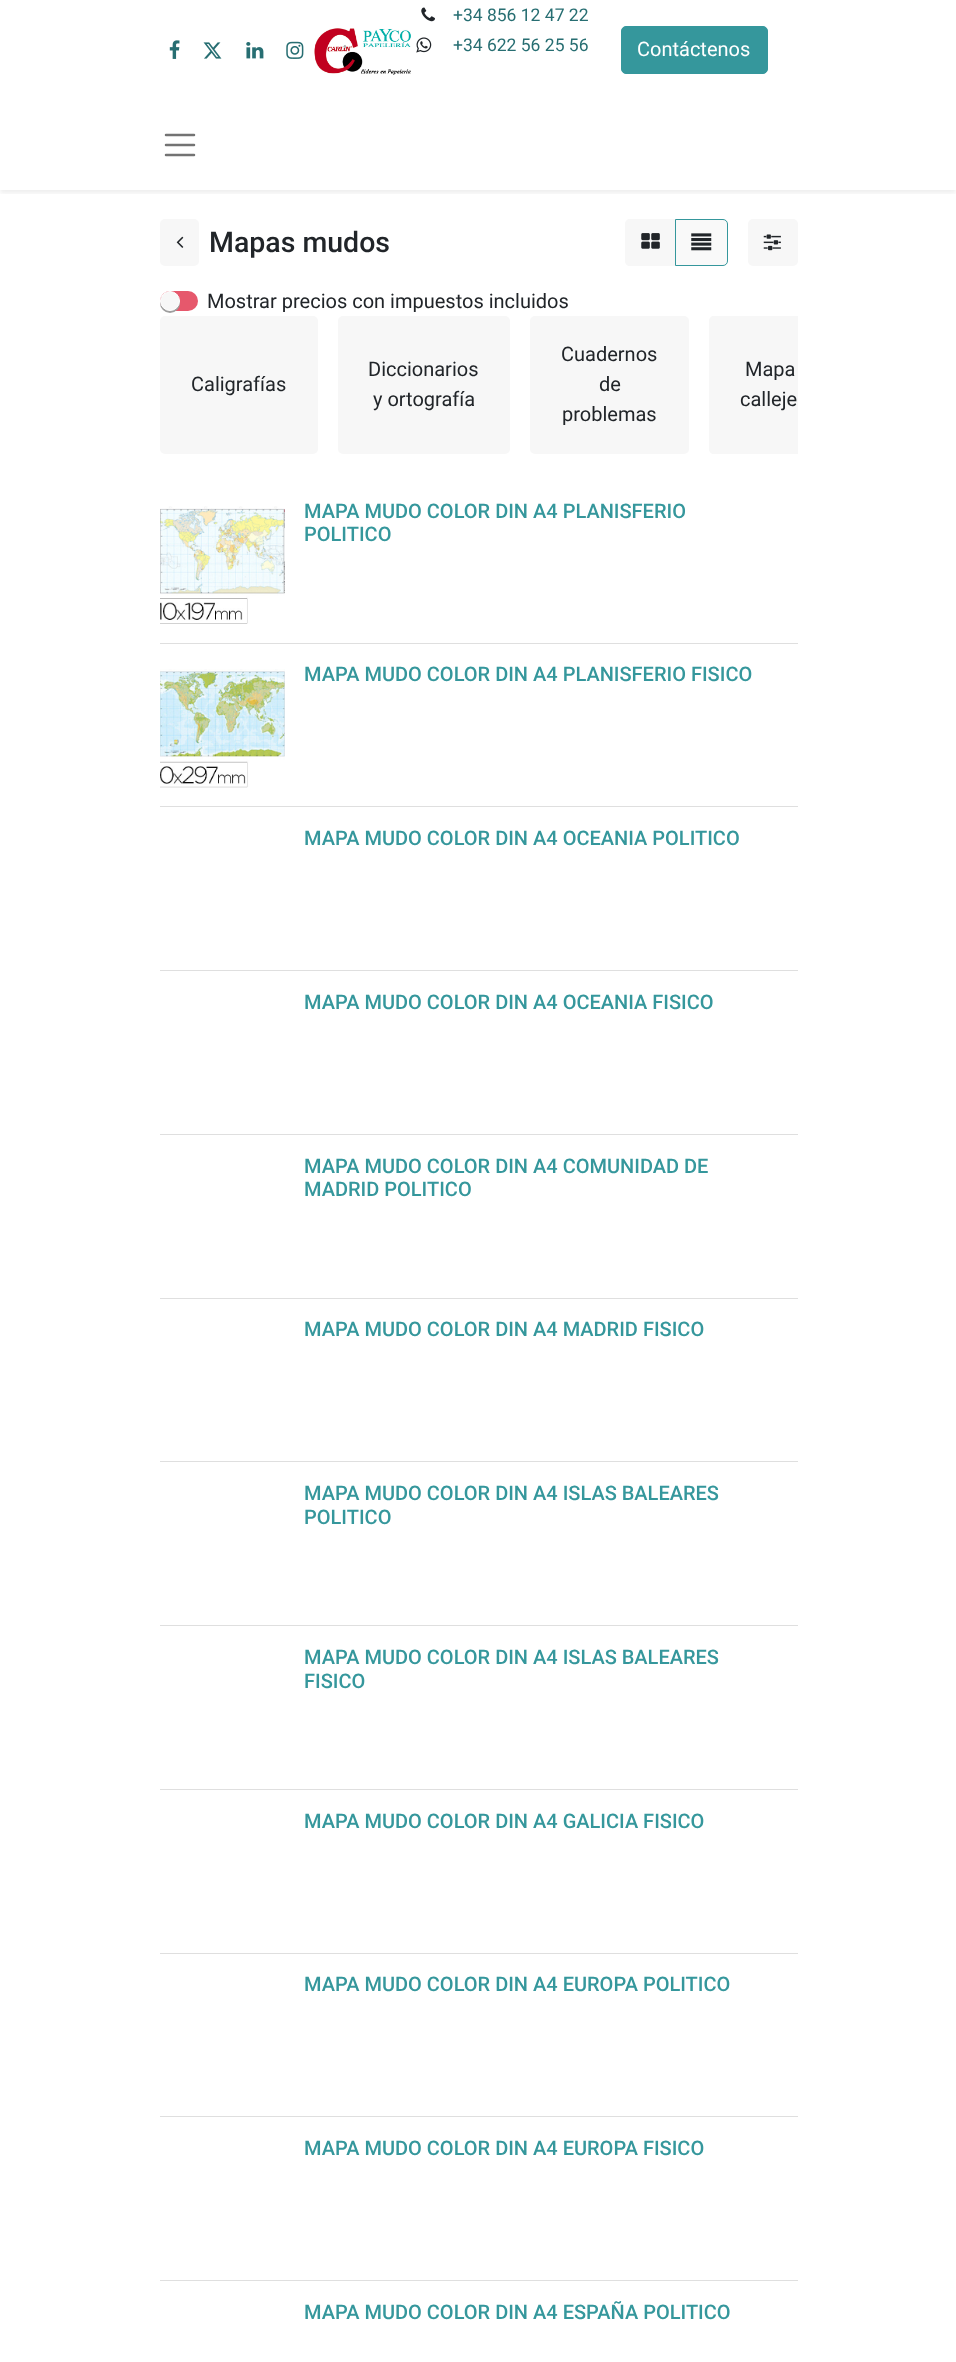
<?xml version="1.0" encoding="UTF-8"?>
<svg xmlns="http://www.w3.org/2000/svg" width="956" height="2362">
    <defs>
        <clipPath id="clip1"><rect x="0" y="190" width="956" height="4"/></clipPath>
        <filter id="blur1" x="-50%" y="-200%" width="200%" height="500%"><feGaussianBlur stdDeviation="2.5"/></filter>
        <filter id="blur2" x="-50%" y="-200%" width="200%" height="500%"><feGaussianBlur stdDeviation="0.5"/></filter>
    </defs>
    <rect width="100%" height="100%" fill="#FFFFFF"/>
    <g clip-path="url(#clip1)">
        <rect x="0" y="3" width="956" height="190" fill="#000000" fill-opacity="0.07" filter="url(#blur1)"/>
    </g>
    <image x="169" y="40" width="11" height="19" href="img_01.png"/>
    <image x="203" y="42" width="19" height="17" href="img_02.png"/>
    <image x="246" y="42" width="18" height="17" href="img_03.png"/>
    <image x="286" y="41" width="18" height="18" href="img_04.png"/>
    <image x="314" y="28" width="97" height="47" href="img_05.png"/>
    <image x="421" y="7" width="14" height="15" href="img_06.png"/>
    <text x="453" y="21" font-family="Roboto" font-size="17.5" fill="#276E72">+34 856 12 47 22</text>
    <image x="416" y="37" width="16" height="16" href="img_07.png"/>
    <text x="453" y="51" font-family="Roboto" font-size="17.5" fill="#276E72">+34 622 56 25 56</text>
    <rect x="621.5" y="26.5" width="146" height="47" rx="4.5" fill="#35979C" stroke="#35979C"/>
    <text x="637" y="56" font-family="Roboto" font-size="20" fill="#FFFFFF">Contáctenos</text>
    <path d="M 166 135 H 194 M 166 145 H 194 M 166 155 H 194" fill="none" stroke="#737373" stroke-width="2.5" stroke-linecap="round"/>
    <rect x="160" y="219" width="39" height="47" rx="5" fill="#F7F7F7"/>
    <image x="176" y="236" width="8" height="12" href="img_08.png"/>
    <text x="209" y="252" font-family="Roboto" font-size="28.5" font-weight="500" fill="#212529">Mapas mudos</text>
    <path d="M 630 219 H 676 V 266 H 630 C 627 266 625 264 625 261 V 224 C 625 221 627 219 630 219 Z" fill="#F7F7F7"/>
    <image x="641" y="233" width="19" height="16" href="img_09.png"/>
    <path d="M 675.5 219.5 H 723 C 725.5 219.5 727.5 221.5 727.5 224 V 261 C 727.5 263.5 725.5 265.5 723 265.5 H 675.5 Z" fill="#F9F9F9" stroke="#35979C"/>
    <image x="691" y="233" width="21" height="18" href="img_10.png"/>
    <rect x="748" y="219" width="50" height="47" rx="5" fill="#F7F7F7"/>
    <image x="763" y="234" width="18" height="17" href="img_11.png"/>
    <rect x="160" y="291" width="38" height="20" rx="10" fill="#E6586C"/>
    <rect x="160" y="293" width="20" height="20" rx="10" fill="#9E9E9E" filter="url(#blur2)"/>
    <circle cx="170" cy="301" r="9.5" fill="#F7F7F7" stroke="#FFFFFF"/>
    <text x="207" y="308" font-family="Roboto" font-size="20" fill="#212529">Mostrar precios con impuestos incluidos</text>
    <rect x="160" y="316" width="158" height="138" rx="5" fill="#F7F7F7"/>
    <text x="191" y="391" font-family="Roboto" font-size="20" fill="#212529">Caligrafías</text>
    <rect x="338" y="316" width="172" height="138" rx="5" fill="#F7F7F7"/>
    <text x="368" y="376" font-family="Roboto" font-size="20" fill="#212529">Diccionarios</text>
    <text x="373" y="406" font-family="Roboto" font-size="20" fill="#212529">y ortografía</text>
    <rect x="530" y="316" width="159" height="138" rx="5" fill="#F7F7F7"/>
    <text x="561" y="361" font-family="Roboto" font-size="20" fill="#212529">Cuadernos</text>
    <text x="599" y="391" font-family="Roboto" font-size="20" fill="#212529">de</text>
    <text x="562" y="421" font-family="Roboto" font-size="20" fill="#212529">problemas</text>
    <path d="M 714 316 H 798 V 454 H 714 C 711 454 709 452 709 449 V 321 C 709 318 711 316 714 316 Z" fill="#F7F7F7"/>
    <text x="745" y="376" font-family="Roboto" font-size="20" fill="#212529">Mapa</text>
    <text x="740" y="406" font-family="Roboto" font-size="20" fill="#212529">calleje</text>
    <rect x="160" y="643" width="638" height="1" fill="#DFDFDF"/>
    <image x="160" y="506" width="125" height="118" href="img_12.png"/>
    <text font-family="Roboto" font-size="20" font-weight="500" fill="#35979C">
        <tspan x="304" y="518">MAPA MUDO COLOR DIN A4 PLANISFERIO</tspan>
        <tspan x="304" y="541">POLITICO</tspan>
    </text>
    <rect x="160" y="806" width="638" height="1" fill="#DFDFDF"/>
    <image x="160" y="669" width="125" height="119" href="img_13.png"/>
    <text x="304" y="681" font-family="Roboto" font-size="20" font-weight="500" fill="#35979C">MAPA MUDO COLOR DIN A4 PLANISFERIO FISICO</text>
    <rect x="160" y="970" width="638" height="1" fill="#DFDFDF"/>
    <text x="304" y="845" font-family="Roboto" font-size="20" font-weight="500" fill="#35979C">MAPA MUDO COLOR DIN A4 OCEANIA POLITICO</text>
    <rect x="160" y="1134" width="638" height="1" fill="#DFDFDF"/>
    <text x="304" y="1009" font-family="Roboto" font-size="20" font-weight="500" fill="#35979C">MAPA MUDO COLOR DIN A4 OCEANIA FISICO</text>
    <rect x="160" y="1298" width="638" height="1" fill="#DFDFDF"/>
    <text font-family="Roboto" font-size="20" font-weight="500" fill="#35979C">
        <tspan x="304" y="1173">MAPA MUDO COLOR DIN A4 COMUNIDAD DE</tspan>
        <tspan x="304" y="1196">MADRID POLITICO</tspan>
    </text>
    <rect x="160" y="1461" width="638" height="1" fill="#DFDFDF"/>
    <text x="304" y="1336" font-family="Roboto" font-size="20" font-weight="500" fill="#35979C">MAPA MUDO COLOR DIN A4 MADRID FISICO</text>
    <rect x="160" y="1625" width="638" height="1" fill="#DFDFDF"/>
    <text font-family="Roboto" font-size="20" font-weight="500" fill="#35979C">
        <tspan x="304" y="1500">MAPA MUDO COLOR DIN A4 ISLAS BALEARES</tspan>
        <tspan x="304" y="1524">POLITICO</tspan>
    </text>
    <rect x="160" y="1789" width="638" height="1" fill="#DFDFDF"/>
    <text font-family="Roboto" font-size="20" font-weight="500" fill="#35979C">
        <tspan x="304" y="1664">MAPA MUDO COLOR DIN A4 ISLAS BALEARES</tspan>
        <tspan x="304" y="1688">FISICO</tspan>
    </text>
    <rect x="160" y="1953" width="638" height="1" fill="#DFDFDF"/>
    <text x="304" y="1828" font-family="Roboto" font-size="20" font-weight="500" fill="#35979C">MAPA MUDO COLOR DIN A4 GALICIA FISICO</text>
    <rect x="160" y="2116" width="638" height="1" fill="#DFDFDF"/>
    <text x="304" y="1991" font-family="Roboto" font-size="20" font-weight="500" fill="#35979C">MAPA MUDO COLOR DIN A4 EUROPA POLITICO</text>
    <rect x="160" y="2280" width="638" height="1" fill="#DFDFDF"/>
    <text x="304" y="2155" font-family="Roboto" font-size="20" font-weight="500" fill="#35979C">MAPA MUDO COLOR DIN A4 EUROPA FISICO</text>
    <text x="304" y="2319" font-family="Roboto" font-size="20" font-weight="500" fill="#35979C">MAPA MUDO COLOR DIN A4 ESPAÑA POLITICO</text>
</svg>
